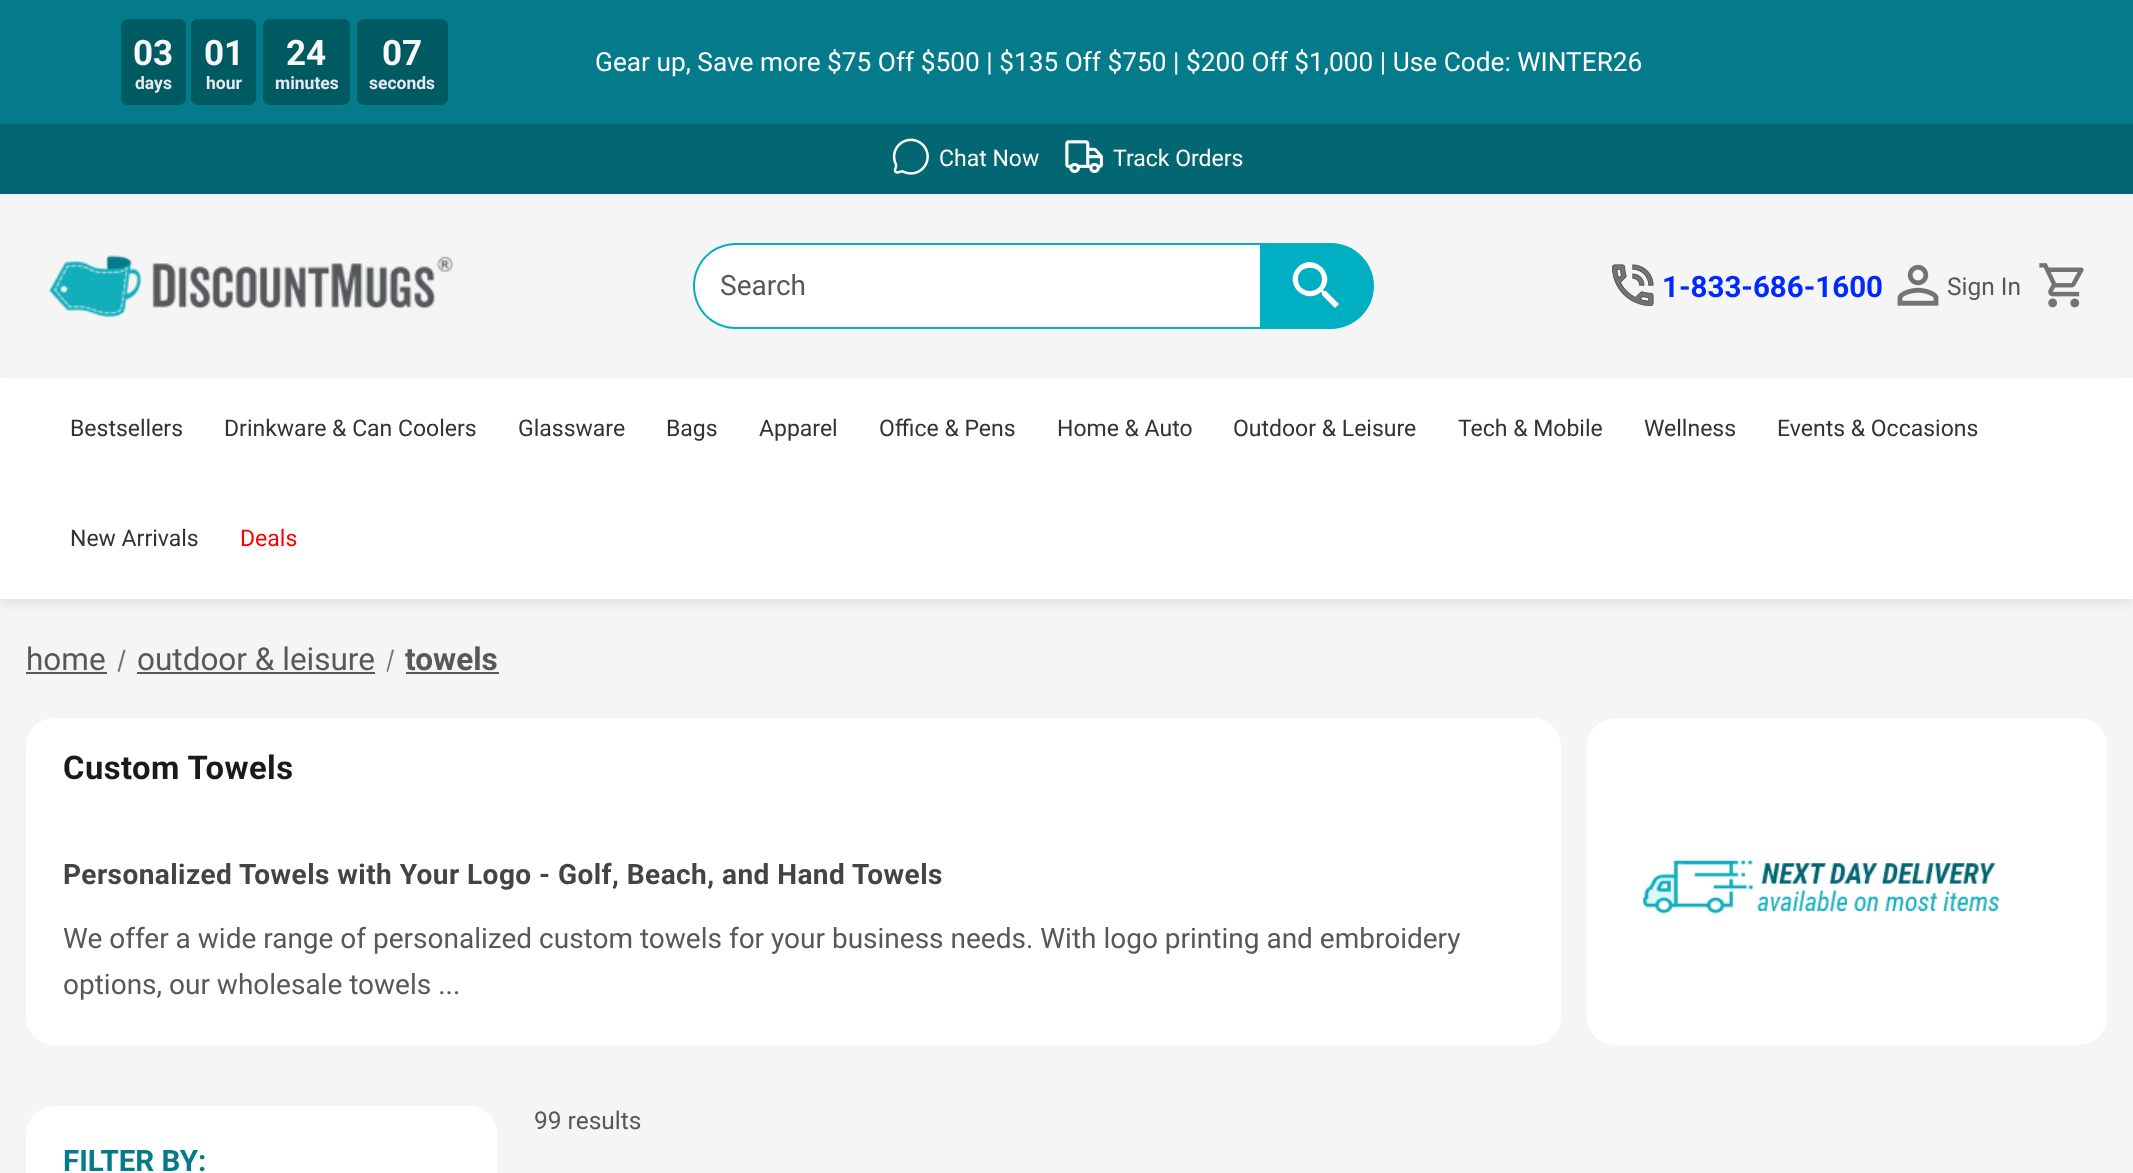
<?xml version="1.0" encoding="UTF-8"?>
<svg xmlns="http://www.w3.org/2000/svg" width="2133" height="1173">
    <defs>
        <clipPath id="clip1"><path d="M 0 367 H 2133 V 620 H 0 Z M 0 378 H 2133 V 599 H 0 Z" clip-rule="evenodd"/></clipPath>
        <filter id="blur1" x="-50%" y="-200%" width="200%" height="500%"><feGaussianBlur stdDeviation="5"/></filter>
    </defs>
    <rect width="100%" height="100%" fill="#FFFFFF"/>
    <rect x="0" y="124" width="2133" height="70" fill="#036673"/>
    <rect x="0" y="0" width="2133" height="124" fill="#047B8A"/>
    <rect x="122" y="20" width="63" height="84" rx="6" fill="#005A61" stroke="#005A61" stroke-width="2"/>
    <text x="133" y="65" font-family="Roboto" font-size="35" font-weight="700" fill="#F8F7FA">03</text>
    <text x="135" y="89" font-family="Roboto" font-size="17.5" font-weight="700" fill="#E8E8EF">days</text>
    <rect x="192" y="20" width="63" height="84" rx="6" fill="#005A61" stroke="#005A61" stroke-width="2"/>
    <text x="204" y="65" font-family="Roboto" font-size="35" font-weight="700" fill="#F8F7FA">01</text>
    <text x="206" y="89" font-family="Roboto" font-size="17.5" font-weight="700" fill="#E8E8EF">hour</text>
    <rect x="264" y="20" width="85" height="84" rx="6" fill="#005A61" stroke="#005A61" stroke-width="2"/>
    <text x="286" y="65" font-family="Roboto" font-size="35" font-weight="700" fill="#F8F7FA">24</text>
    <text x="275" y="89" font-family="Roboto" font-size="17.5" font-weight="700" fill="#E8E8EF">minutes</text>
    <rect x="358" y="20" width="89" height="84" rx="6" fill="#005A61" stroke="#005A61" stroke-width="2"/>
    <text x="382" y="65" font-family="Roboto" font-size="35" font-weight="700" fill="#F8F7FA">07</text>
    <text x="369" y="89" font-family="Roboto" font-size="17.5" font-weight="700" fill="#E8E8EF">seconds</text>
    <text x="595" y="71" font-family="Roboto" font-size="26.25" fill="#FFFFFF">Gear up, Save more $75 Off $500 | $135 Off $750 | $200 Off $1,000 | Use Code: WINTER26</text>
    <image x="892" y="138" width="37" height="37" href="img_01.png"/>
    <text x="939" y="166" font-family="Roboto" font-size="23" fill="#FFFFFF">Chat Now</text>
    <image x="1065" y="140" width="38" height="33" href="img_02.png"/>
    <text x="1113" y="166" font-family="Roboto" font-size="23" fill="#FFFFFF">Track Orders</text>
    <rect x="0" y="194" width="2133" height="184" fill="#F5F5F5"/>
    <image x="49" y="255" width="405" height="63" href="img_03.png"/>
    <path d="M 736 245 H 1260 V 327 H 736 C 713.5 327 695 308.5 695 286 C 695 263.5 713.5 245 736 245 Z" fill="#FFFFFF"/>
    <path d="M 736 243 H 1260 V 329 H 736 C 712 329 693 310 693 286 C 693 262 712 243 736 243 Z M 736 245 H 1260 V 327 H 736 C 713 327 695 309 695 286 C 695 263 713 245 736 245 Z" fill="#00AFC1" fill-rule="evenodd"/>
    <text x="720" y="295" font-family="Roboto" font-size="28" fill="#58585A">Search</text>
    <path d="M 1260 243 H 1331 C 1354.5 243 1374 262.5 1374 286 C 1374 309.5 1354.5 329 1331 329 H 1260 Z" fill="#00AFC1"/>
    <path d="M 1324 291 H 1326 L 1339 304 L 1335 308 L 1322 295 V 293 L 1321 292 C 1305 306 1282 283 1298 267 C 1314 252 1337 275 1323 290 Z M 1298 279 C 1298 295 1322 295 1322 279 C 1322 264 1298 264 1298 279 Z" fill="#FFFFFF" fill-rule="evenodd"/>
    <image x="1612" y="264" width="42" height="42" href="img_04.png"/>
    <text x="1662" y="297" font-family="Roboto" font-size="29.5" font-weight="700" fill="#0029FF">1-833-686-1600</text>
    <image x="1897" y="264" width="42" height="42" href="img_05.png"/>
    <text x="1947" y="295" font-family="Roboto" font-size="24.5" fill="#58585A">Sign In</text>
    <image x="2039" y="263" width="45" height="45" href="img_06.png"/>
    <rect x="0" y="599" width="2133" height="574" fill="#F5F5F5"/>
    <g clip-path="url(#clip1)">
        <rect x="0" y="383" width="2133" height="221" fill="#000000" fill-opacity="0.08" filter="url(#blur1)"/>
    </g>
    <text x="70" y="436" font-family="Roboto" font-size="23" fill="#333333">Bestsellers</text>
    <text x="224" y="436" font-family="Roboto" font-size="23" fill="#333333">Drinkware &amp; Can Coolers</text>
    <text x="518" y="436" font-family="Roboto" font-size="23" fill="#333333">Glassware</text>
    <text x="666" y="436" font-family="Roboto" font-size="23" fill="#333333">Bags</text>
    <text x="759" y="436" font-family="Roboto" font-size="23" fill="#333333">Apparel</text>
    <text x="879" y="436" font-family="Roboto" font-size="23" fill="#333333">Office &amp; Pens</text>
    <text x="1057" y="436" font-family="Roboto" font-size="23" fill="#333333">Home &amp; Auto</text>
    <text x="1233" y="436" font-family="Roboto" font-size="23" fill="#333333">Outdoor &amp; Leisure</text>
    <text x="1458" y="436" font-family="Roboto" font-size="23" fill="#333333">Tech &amp; Mobile</text>
    <text x="1644" y="436" font-family="Roboto" font-size="23" fill="#333333">Wellness</text>
    <text x="1777" y="436" font-family="Roboto" font-size="23" fill="#333333">Events &amp; Occasions</text>
    <text x="70" y="546" font-family="Roboto" font-size="23" fill="#333333">New Arrivals</text>
    <text x="240" y="546" font-family="Roboto" font-size="23" fill="#FF0000">Deals</text>
    <text x="26" y="670" font-family="Roboto" font-size="31.5" fill="#58585A">home</text>
    <rect x="26" y="672" width="81" height="2" fill="#58585A"/>
    <path d="M 123.5 649.5 L 125.5 650 L 119.5 672 L 117.5 671.5 Z" fill="#757575"/>
    <text x="137" y="670" font-family="Roboto" font-size="31.5" fill="#58585A">outdoor &amp; leisure</text>
    <rect x="137" y="672" width="238" height="2" fill="#58585A"/>
    <path d="M 392 649.5 L 394 650 L 388 672 L 386.5 671.5 Z" fill="#757575"/>
    <text x="405" y="670" font-family="Roboto" font-size="31.5" font-weight="700" fill="#58585A">towels</text>
    <rect x="406" y="672" width="93" height="2" fill="#58585A"/>
    <rect x="26" y="718" width="1535" height="327" rx="28" fill="#FFFFFF"/>
    <text x="63" y="779" font-family="Roboto" font-size="32.75" font-weight="700" letter-spacing="0.45" fill="#1A1A1A">Custom Towels</text>
    <text x="63" y="884" font-family="Roboto" font-size="28" font-weight="700" letter-spacing="0.45" fill="#444444">Personalized Towels with Your Logo - Golf, Beach, and Hand Towels</text>
    <text font-family="Roboto" font-size="28" fill="#58585A">
        <tspan x="63" y="948">We offer a wide range of personalized custom towels for your business needs. With logo printing and embroidery</tspan>
        <tspan x="63" y="994">options, our wholesale towels ...</tspan>
    </text>
    <rect x="1587" y="718" width="520" height="327" rx="28" fill="#FFFFFF"/>
    <image x="1643" y="860" width="357" height="54" href="img_07.png"/>
    <text x="534" y="1129" font-family="Roboto" font-size="24.5" fill="#58585A">99 results</text>
    <rect x="26" y="1106" width="471" height="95" rx="28" fill="#FFFFFF"/>
    <text x="63" y="1171" font-family="Roboto" font-size="29.5" font-weight="700" fill="#047B8A">FILTER BY:</text>
</svg>
